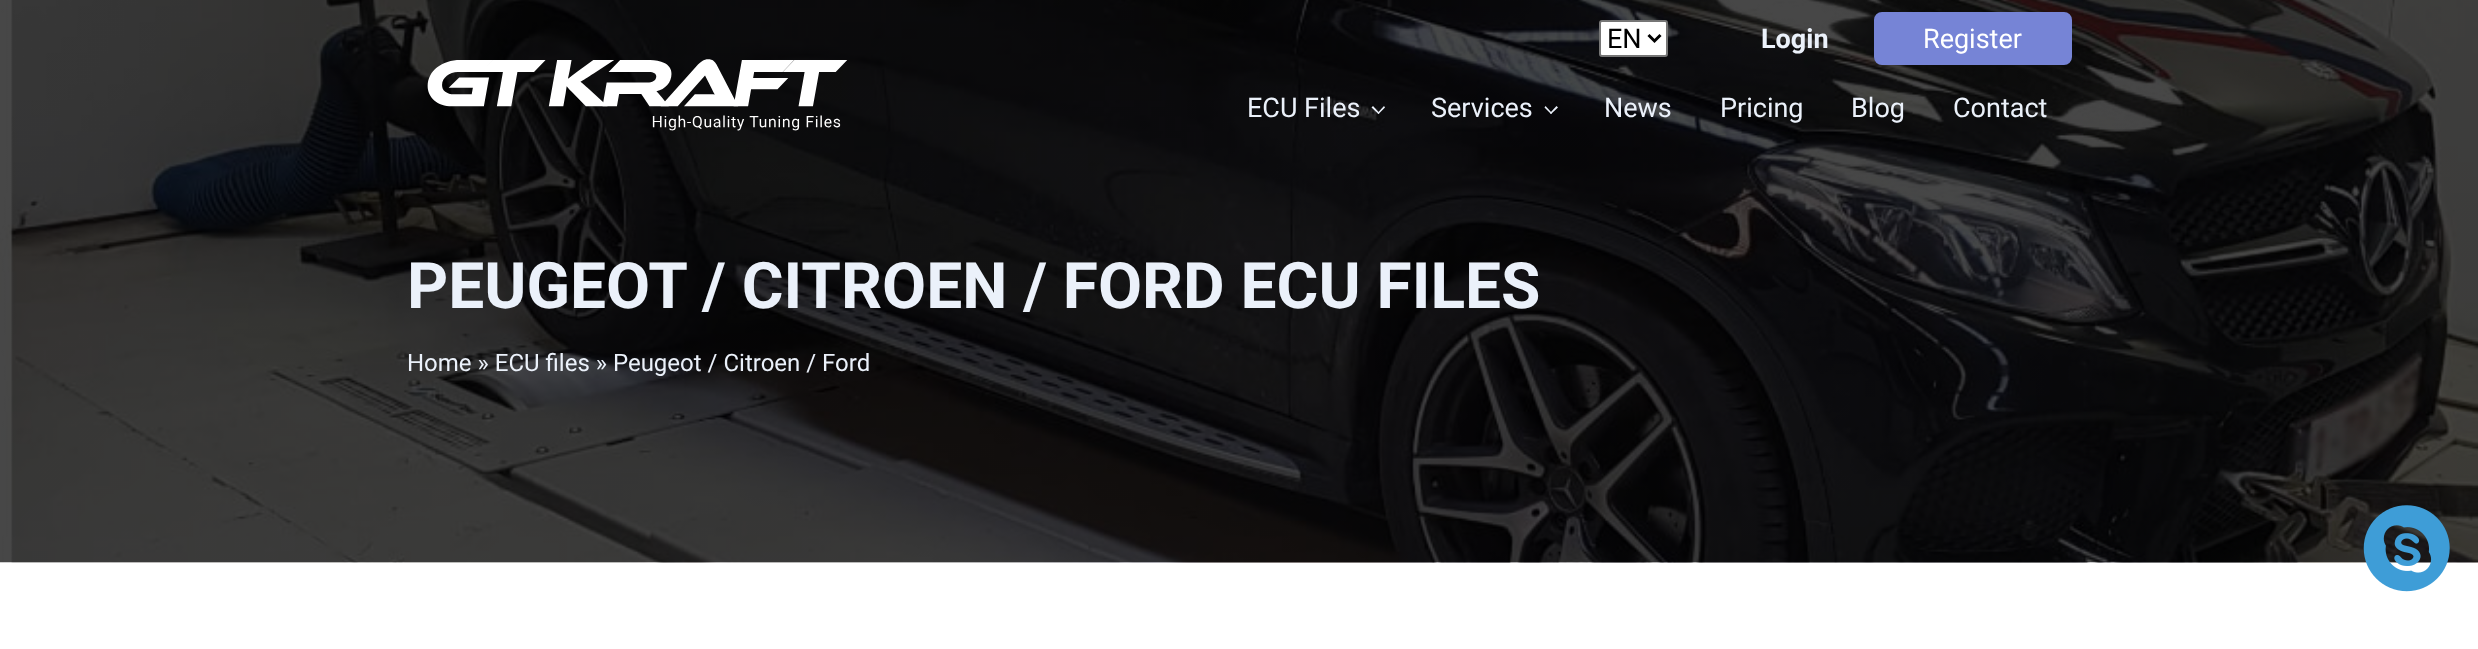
<?xml version="1.0" encoding="UTF-8"?>
<svg xmlns="http://www.w3.org/2000/svg" width="2478" height="649">
    <rect width="100%" height="100%" fill="#FFFFFF"/>
    <image x="0" y="0" width="2478" height="563" href="img_02.png"/>
    <image x="427" y="59" width="421" height="72" href="img_01.png"/>
    <rect x="1600" y="21" width="67" height="35" rx="2" fill="#FFFFFF" stroke="#767676" stroke-width="2"/>
    <path d="M 1648.5 35 L 1654.5 41 L 1660.5 35" fill="none" stroke="#000000" stroke-width="3"/>
    <text x="1607" y="48" font-family="Roboto" font-size="27" fill="#000000">EN</text>
    <text x="1761" y="48" font-family="Roboto" font-size="27" font-weight="700" fill="#EBF1FA">Login</text>
    <rect x="1875" y="13" width="196" height="51" rx="7" fill="#7684D6" stroke="#7684D6" stroke-width="2"/>
    <text x="1923" y="48" font-family="Roboto" font-size="27" fill="#FFFFFF">Register</text>
    <text x="1247" y="117" font-family="Roboto" font-size="27" fill="#EBF1FA">ECU Files</text>
    <path d="M 1385 107.5 L 1378.5 114 L 1377.5 113 L 1384 106 Z" fill="#EBF1FA"/>
    <path d="M 1379.5 113 L 1378.5 114 L 1371.5 107.5 L 1373 106 Z" fill="#EBF1FA"/>
    <text x="1431" y="117" font-family="Roboto" font-size="27" fill="#EBF1FA">Services</text>
    <path d="M 1558 107.5 L 1551 114 L 1550 113 L 1556.5 106 Z" fill="#EBF1FA"/>
    <path d="M 1552 113 L 1551 114 L 1544.5 107.5 L 1545.5 106 Z" fill="#EBF1FA"/>
    <text x="1604" y="117" font-family="Roboto" font-size="27" fill="#EBF1FA">News</text>
    <text x="1720" y="117" font-family="Roboto" font-size="27" fill="#EBF1FA">Pricing</text>
    <text x="1851" y="117" font-family="Roboto" font-size="27" fill="#EBF1FA">Blog</text>
    <text x="1953" y="117" font-family="Roboto" font-size="27" fill="#EBF1FA">Contact</text>
    <text x="407" y="308" font-family="Roboto" font-size="64" font-weight="700" fill="#EBF1FA">PEUGEOT / CITROEN / FORD ECU FILES</text>
    <text x="407" y="371" font-family="Roboto" font-size="24" fill="#EBF1FA">Home » ECU files » Peugeot / Citroen / Ford</text>
    <image x="2363" y="505" width="87" height="87" href="img_03.png"/>
</svg>
